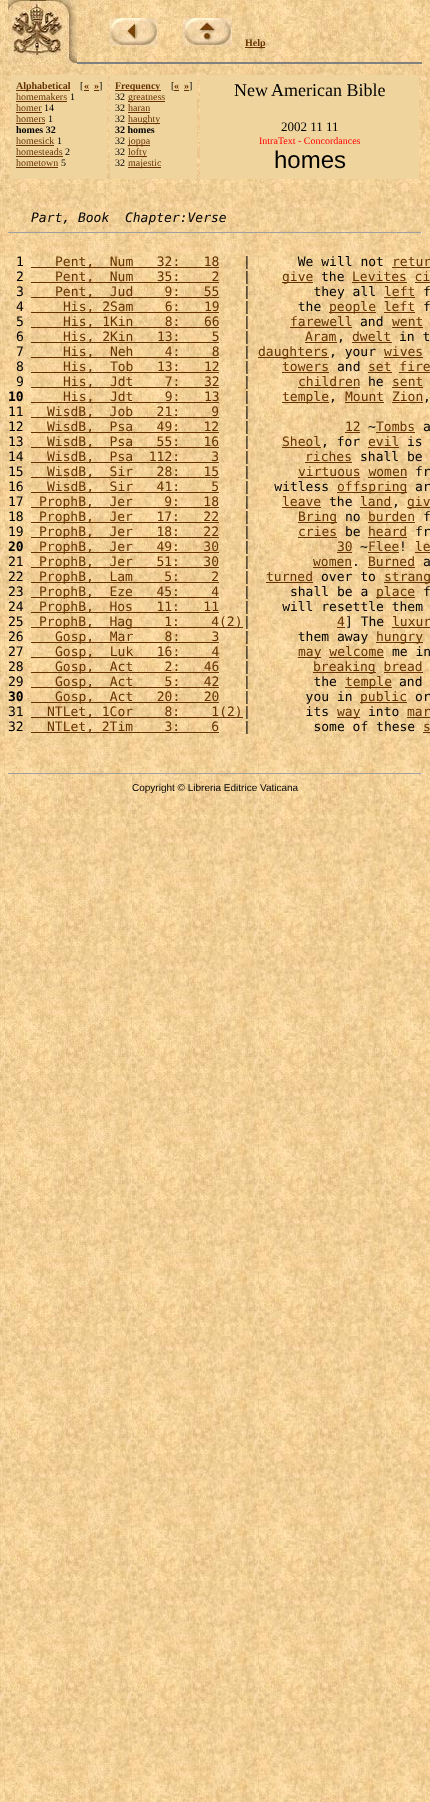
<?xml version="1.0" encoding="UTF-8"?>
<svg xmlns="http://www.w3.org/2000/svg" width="430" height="1802">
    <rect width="100%" height="100%" fill="#FFFFFF"/>
    <image x="0" y="0" width="430" height="1802" href="img_01.png"/>
    <image x="8" y="0" width="69" height="65" href="img_02.png"/>
    <image x="109" y="18" width="49" height="28" href="img_03.png"/>
    <image x="183" y="18" width="49" height="28" href="img_04.png"/>
    <rect x="245" y="47" width="20" height="1" fill="#663300"/>
    <text x="245" y="46" font-family="Liberation Serif" font-size="10" font-weight="700" fill="#663300">Help</text>
    <rect x="77" y="62" width="345" height="2" fill="#808080"/>
    <rect x="11" y="75" width="96" height="104" fill="#EFD49D"/>
    <rect x="16" y="90" width="54" height="1" fill="#663300"/>
    <text x="16" y="89" font-family="Liberation Serif" font-size="10" font-weight="700" fill="#663300">Alphabetical</text>
    <text x="80" y="89" font-family="Liberation Serif" font-size="10" fill="#000000">[</text>
    <rect x="84" y="90" width="5" height="1" fill="#663300"/>
    <text x="84" y="89" font-family="Liberation Serif" font-size="10" font-weight="700" fill="#663300">«</text>
    <text x="94" y="89" font-family="Liberation Serif" font-size="10" font-weight="700" fill="#663300">»</text>
    <rect x="94" y="90" width="5" height="1" fill="#663300"/>
    <text x="99" y="89" font-family="Liberation Serif" font-size="10" fill="#000000">]</text>
    <text x="16" y="100" font-family="Liberation Serif" font-size="10" fill="#663300">homemakers</text>
    <rect x="16" y="101" width="51" height="1" fill="#663300"/>
    <text x="70" y="100" font-family="Liberation Serif" font-size="10" fill="#000000">1</text>
    <text x="16" y="111" font-family="Liberation Serif" font-size="10" fill="#663300">homer</text>
    <rect x="16" y="112" width="26" height="1" fill="#663300"/>
    <text x="44" y="111" font-family="Liberation Serif" font-size="10" fill="#000000">14</text>
    <text x="16" y="122" font-family="Liberation Serif" font-size="10" fill="#663300">homers</text>
    <rect x="16" y="123" width="29" height="1" fill="#663300"/>
    <text x="48" y="122" font-family="Liberation Serif" font-size="10" fill="#000000">1</text>
    <text x="16" y="133" font-family="Liberation Serif" font-size="10" font-weight="700" fill="#000000">homes 32</text>
    <text x="16" y="144" font-family="Liberation Serif" font-size="10" fill="#663300">homesick</text>
    <rect x="16" y="145" width="38" height="1" fill="#663300"/>
    <text x="57" y="144" font-family="Liberation Serif" font-size="10" fill="#000000">1</text>
    <text x="16" y="155" font-family="Liberation Serif" font-size="10" fill="#663300">homesteads</text>
    <rect x="16" y="156" width="47" height="1" fill="#663300"/>
    <text x="65" y="155" font-family="Liberation Serif" font-size="10" fill="#000000">2</text>
    <text x="16" y="166" font-family="Liberation Serif" font-size="10" fill="#663300">hometown</text>
    <rect x="16" y="167" width="42" height="1" fill="#663300"/>
    <text x="61" y="166" font-family="Liberation Serif" font-size="10" fill="#000000">5</text>
    <rect x="110" y="75" width="87" height="104" fill="#EFD49D"/>
    <rect x="115" y="90" width="46" height="1" fill="#663300"/>
    <text x="115" y="89" font-family="Liberation Serif" font-size="10" font-weight="700" fill="#663300">Frequency</text>
    <text x="171" y="89" font-family="Liberation Serif" font-size="10" fill="#000000">[</text>
    <rect x="174" y="90" width="5" height="1" fill="#663300"/>
    <text x="174" y="89" font-family="Liberation Serif" font-size="10" font-weight="700" fill="#663300">«</text>
    <text x="184" y="89" font-family="Liberation Serif" font-size="10" font-weight="700" fill="#663300">»</text>
    <rect x="184" y="90" width="5" height="1" fill="#663300"/>
    <text x="189" y="89" font-family="Liberation Serif" font-size="10" fill="#000000">]</text>
    <text x="115" y="100" font-family="Liberation Serif" font-size="10" fill="#000000">32</text>
    <rect x="128" y="101" width="37" height="1" fill="#663300"/>
    <text x="128" y="100" font-family="Liberation Serif" font-size="10" fill="#663300">greatness</text>
    <text x="115" y="111" font-family="Liberation Serif" font-size="10" fill="#000000">32</text>
    <text x="128" y="111" font-family="Liberation Serif" font-size="10" fill="#663300">haran</text>
    <rect x="128" y="112" width="22" height="1" fill="#663300"/>
    <text x="115" y="122" font-family="Liberation Serif" font-size="10" fill="#000000">32</text>
    <rect x="128" y="123" width="32" height="1" fill="#663300"/>
    <text x="128" y="122" font-family="Liberation Serif" font-size="10" fill="#663300">haughty</text>
    <text x="115" y="133" font-family="Liberation Serif" font-size="10" font-weight="700" fill="#000000">32 homes</text>
    <text x="115" y="144" font-family="Liberation Serif" font-size="10" fill="#000000">32</text>
    <rect x="128" y="145" width="22" height="1" fill="#663300"/>
    <text x="128" y="144" font-family="Liberation Serif" font-size="10" fill="#663300">joppa</text>
    <text x="115" y="155" font-family="Liberation Serif" font-size="10" fill="#000000">32</text>
    <rect x="128" y="156" width="19" height="1" fill="#663300"/>
    <text x="128" y="155" font-family="Liberation Serif" font-size="10" fill="#663300">lofty</text>
    <text x="115" y="166" font-family="Liberation Serif" font-size="10" fill="#000000">32</text>
    <rect x="128" y="167" width="33" height="1" fill="#663300"/>
    <text x="128" y="166" font-family="Liberation Serif" font-size="10" fill="#663300">majestic</text>
    <rect x="200" y="75" width="219" height="104" fill="#EFD49D"/>
    <text x="234" y="96" font-family="Liberation Serif" font-size="18" fill="#000000">New</text>
    <text x="271" y="96" font-family="Liberation Serif" font-size="18" fill="#000000">American Bible</text>
    <text x="281" y="131" font-family="Liberation Serif" font-size="13" fill="#000000">2002 11 11</text>
    <text x="259" y="144" font-family="Liberation Serif" font-size="10" fill="#FF0000">IntraText - Concordances</text>
    <text x="274" y="168" font-family="Liberation Sans" font-size="24" fill="#000000">homes</text>
    <text x="31" y="222" font-family="DejaVu Sans Mono" font-size="13" font-style="italic" fill="#000000" xml:space="preserve">Part, Book  Chapter:Verse</text>
    <rect x="8" y="232" width="414" height="1" fill="#9F9F9F"/>
    <rect x="421" y="232" width="1" height="1" fill="#EEEEEE"/>
    <text x="16" y="266" font-family="DejaVu Sans Mono" font-size="13" fill="#000000">1</text>
    <rect x="31" y="267" width="188" height="1" fill="#663300"/>
    <text x="55" y="266" font-family="DejaVu Sans Mono" font-size="13" fill="#663300" xml:space="preserve">Pent,  Num   32:   18</text>
    <text x="243" y="266" font-family="DejaVu Sans Mono" font-size="13" fill="#000000" xml:space="preserve">|      We will not</text>
    <text x="392" y="266" font-family="DejaVu Sans Mono" font-size="13" fill="#663300">retur</text>
    <rect x="392" y="267" width="38" height="1" fill="#663300"/>
    <text x="16" y="281" font-family="DejaVu Sans Mono" font-size="13" fill="#000000">2</text>
    <rect x="31" y="282" width="188" height="1" fill="#663300"/>
    <text x="55" y="281" font-family="DejaVu Sans Mono" font-size="13" fill="#663300" xml:space="preserve">Pent,  Num   35:    2</text>
    <text x="243" y="281" font-family="DejaVu Sans Mono" font-size="13" fill="#000000">|</text>
    <rect x="282" y="282" width="31" height="1" fill="#663300"/>
    <text x="282" y="281" font-family="DejaVu Sans Mono" font-size="13" fill="#663300">give</text>
    <text x="321" y="281" font-family="DejaVu Sans Mono" font-size="13" fill="#000000">the</text>
    <text x="352" y="281" font-family="DejaVu Sans Mono" font-size="13" fill="#663300">Levites ci</text>
    <rect x="352" y="282" width="55" height="1" fill="#663300"/>
    <rect x="415" y="282" width="15" height="1" fill="#663300"/>
    <text x="16" y="296" font-family="DejaVu Sans Mono" font-size="13" fill="#000000">3</text>
    <rect x="31" y="297" width="188" height="1" fill="#663300"/>
    <text x="55" y="296" font-family="DejaVu Sans Mono" font-size="13" fill="#663300" xml:space="preserve">Pent,  Jud    9:   55</text>
    <text x="243" y="296" font-family="DejaVu Sans Mono" font-size="13" fill="#000000" xml:space="preserve">|        they all</text>
    <text x="384" y="296" font-family="DejaVu Sans Mono" font-size="13" fill="#663300">left</text>
    <rect x="384" y="297" width="31" height="1" fill="#663300"/>
    <text x="423" y="296" font-family="DejaVu Sans Mono" font-size="13" fill="#000000">f</text>
    <text x="16" y="311" font-family="DejaVu Sans Mono" font-size="13" fill="#000000">4</text>
    <rect x="31" y="312" width="188" height="1" fill="#663300"/>
    <text x="63" y="311" font-family="DejaVu Sans Mono" font-size="13" fill="#663300" xml:space="preserve">His, 2Sam    6:   19</text>
    <text x="243" y="311" font-family="DejaVu Sans Mono" font-size="13" fill="#000000" xml:space="preserve">|      the</text>
    <rect x="329" y="312" width="47" height="1" fill="#663300"/>
    <text x="329" y="311" font-family="DejaVu Sans Mono" font-size="13" fill="#663300">people left</text>
    <text x="423" y="311" font-family="DejaVu Sans Mono" font-size="13" fill="#000000">f</text>
    <rect x="384" y="312" width="31" height="1" fill="#663300"/>
    <text x="16" y="326" font-family="DejaVu Sans Mono" font-size="13" fill="#000000">5</text>
    <rect x="31" y="327" width="188" height="1" fill="#663300"/>
    <text x="63" y="326" font-family="DejaVu Sans Mono" font-size="13" fill="#663300" xml:space="preserve">His, 1Kin    8:   66</text>
    <text x="243" y="326" font-family="DejaVu Sans Mono" font-size="13" fill="#000000">|</text>
    <text x="290" y="326" font-family="DejaVu Sans Mono" font-size="13" fill="#663300">farewell</text>
    <rect x="290" y="327" width="62" height="1" fill="#663300"/>
    <text x="360" y="326" font-family="DejaVu Sans Mono" font-size="13" fill="#000000">and</text>
    <text x="392" y="326" font-family="DejaVu Sans Mono" font-size="13" fill="#663300">went</text>
    <rect x="392" y="327" width="31" height="1" fill="#663300"/>
    <text x="16" y="341" font-family="DejaVu Sans Mono" font-size="13" fill="#000000">6</text>
    <rect x="31" y="342" width="188" height="1" fill="#663300"/>
    <text x="63" y="341" font-family="DejaVu Sans Mono" font-size="13" fill="#663300" xml:space="preserve">His, 2Kin   13:    5</text>
    <text x="243" y="341" font-family="DejaVu Sans Mono" font-size="13" fill="#000000">|</text>
    <text x="305" y="341" font-family="DejaVu Sans Mono" font-size="13" fill="#663300">Aram</text>
    <rect x="305" y="342" width="32" height="1" fill="#663300"/>
    <text x="337" y="341" font-family="DejaVu Sans Mono" font-size="13" fill="#000000">,</text>
    <text x="352" y="341" font-family="DejaVu Sans Mono" font-size="13" fill="#663300">dwelt</text>
    <rect x="352" y="342" width="40" height="1" fill="#663300"/>
    <text x="399" y="341" font-family="DejaVu Sans Mono" font-size="13" fill="#000000">in t</text>
    <text x="16" y="356" font-family="DejaVu Sans Mono" font-size="13" fill="#000000">7</text>
    <rect x="31" y="357" width="188" height="1" fill="#663300"/>
    <text x="63" y="356" font-family="DejaVu Sans Mono" font-size="13" fill="#663300" xml:space="preserve">His,  Neh    4:    8</text>
    <text x="243" y="356" font-family="DejaVu Sans Mono" font-size="13" fill="#000000">|</text>
    <rect x="258" y="357" width="71" height="1" fill="#663300"/>
    <text x="258" y="356" font-family="DejaVu Sans Mono" font-size="13" fill="#663300">daughters</text>
    <text x="329" y="356" font-family="DejaVu Sans Mono" font-size="13" fill="#000000">, your</text>
    <text x="384" y="356" font-family="DejaVu Sans Mono" font-size="13" fill="#663300">wives</text>
    <rect x="384" y="357" width="39" height="1" fill="#663300"/>
    <text x="16" y="371" font-family="DejaVu Sans Mono" font-size="13" fill="#000000">8</text>
    <rect x="31" y="372" width="188" height="1" fill="#663300"/>
    <text x="63" y="371" font-family="DejaVu Sans Mono" font-size="13" fill="#663300" xml:space="preserve">His,  Tob   13:   12</text>
    <text x="243" y="371" font-family="DejaVu Sans Mono" font-size="13" fill="#000000">|</text>
    <text x="282" y="371" font-family="DejaVu Sans Mono" font-size="13" fill="#663300">towers</text>
    <rect x="282" y="372" width="47" height="1" fill="#663300"/>
    <text x="337" y="371" font-family="DejaVu Sans Mono" font-size="13" fill="#000000">and</text>
    <text x="368" y="371" font-family="DejaVu Sans Mono" font-size="13" fill="#663300">set fire</text>
    <rect x="368" y="372" width="24" height="1" fill="#663300"/>
    <rect x="399" y="372" width="31" height="1" fill="#663300"/>
    <text x="16" y="386" font-family="DejaVu Sans Mono" font-size="13" fill="#000000">9</text>
    <rect x="31" y="387" width="188" height="1" fill="#663300"/>
    <text x="63" y="386" font-family="DejaVu Sans Mono" font-size="13" fill="#663300" xml:space="preserve">His,  Jdt    7:   32</text>
    <text x="243" y="386" font-family="DejaVu Sans Mono" font-size="13" fill="#000000">|</text>
    <text x="298" y="386" font-family="DejaVu Sans Mono" font-size="13" fill="#663300">children</text>
    <rect x="298" y="387" width="62" height="1" fill="#663300"/>
    <text x="368" y="386" font-family="DejaVu Sans Mono" font-size="13" fill="#000000">he</text>
    <text x="392" y="386" font-family="DejaVu Sans Mono" font-size="13" fill="#663300">sent</text>
    <rect x="392" y="387" width="31" height="1" fill="#663300"/>
    <text x="8" y="401" font-family="DejaVu Sans Mono" font-size="13" font-weight="700" fill="#000000">10</text>
    <rect x="31" y="402" width="188" height="1" fill="#663300"/>
    <text x="63" y="401" font-family="DejaVu Sans Mono" font-size="13" fill="#663300" xml:space="preserve">His,  Jdt    9:   13</text>
    <text x="243" y="401" font-family="DejaVu Sans Mono" font-size="13" fill="#000000">|</text>
    <rect x="282" y="402" width="47" height="1" fill="#663300"/>
    <text x="282" y="401" font-family="DejaVu Sans Mono" font-size="13" fill="#663300">temple</text>
    <text x="329" y="401" font-family="DejaVu Sans Mono" font-size="13" fill="#000000">,</text>
    <text x="345" y="401" font-family="DejaVu Sans Mono" font-size="13" fill="#663300">Mount Zion</text>
    <rect x="345" y="402" width="39" height="1" fill="#663300"/>
    <text x="423" y="401" font-family="DejaVu Sans Mono" font-size="13" fill="#000000">,</text>
    <rect x="392" y="402" width="31" height="1" fill="#663300"/>
    <text x="8" y="416" font-family="DejaVu Sans Mono" font-size="13" fill="#000000">11</text>
    <rect x="31" y="417" width="188" height="1" fill="#663300"/>
    <text x="47" y="416" font-family="DejaVu Sans Mono" font-size="13" fill="#663300" xml:space="preserve">WisdB,  Job   21:    9</text>
    <text x="243" y="416" font-family="DejaVu Sans Mono" font-size="13" fill="#000000">|</text>
    <text x="8" y="431" font-family="DejaVu Sans Mono" font-size="13" fill="#000000">12</text>
    <rect x="31" y="432" width="188" height="1" fill="#663300"/>
    <text x="47" y="431" font-family="DejaVu Sans Mono" font-size="13" fill="#663300" xml:space="preserve">WisdB,  Psa   49:   12</text>
    <text x="243" y="431" font-family="DejaVu Sans Mono" font-size="13" fill="#000000">|</text>
    <text x="345" y="431" font-family="DejaVu Sans Mono" font-size="13" fill="#663300">12</text>
    <rect x="345" y="432" width="15" height="1" fill="#663300"/>
    <text x="368" y="431" font-family="DejaVu Sans Mono" font-size="13" fill="#000000">~</text>
    <text x="376" y="431" font-family="DejaVu Sans Mono" font-size="13" fill="#663300">Tombs</text>
    <rect x="376" y="432" width="39" height="1" fill="#663300"/>
    <text x="423" y="431" font-family="DejaVu Sans Mono" font-size="13" fill="#000000">a</text>
    <text x="8" y="446" font-family="DejaVu Sans Mono" font-size="13" fill="#000000">13</text>
    <rect x="31" y="447" width="188" height="1" fill="#663300"/>
    <text x="47" y="446" font-family="DejaVu Sans Mono" font-size="13" fill="#663300" xml:space="preserve">WisdB,  Psa   55:   16</text>
    <text x="243" y="446" font-family="DejaVu Sans Mono" font-size="13" fill="#000000">|</text>
    <text x="282" y="446" font-family="DejaVu Sans Mono" font-size="13" fill="#663300">Sheol</text>
    <rect x="282" y="447" width="39" height="1" fill="#663300"/>
    <text x="321" y="446" font-family="DejaVu Sans Mono" font-size="13" fill="#000000">, for</text>
    <text x="368" y="446" font-family="DejaVu Sans Mono" font-size="13" fill="#663300">evil</text>
    <rect x="368" y="447" width="31" height="1" fill="#663300"/>
    <text x="407" y="446" font-family="DejaVu Sans Mono" font-size="13" fill="#000000">is</text>
    <text x="8" y="461" font-family="DejaVu Sans Mono" font-size="13" fill="#000000">14</text>
    <rect x="31" y="462" width="188" height="1" fill="#663300"/>
    <text x="47" y="461" font-family="DejaVu Sans Mono" font-size="13" fill="#663300" xml:space="preserve">WisdB,  Psa  112:    3</text>
    <text x="243" y="461" font-family="DejaVu Sans Mono" font-size="13" fill="#000000">|</text>
    <text x="305" y="461" font-family="DejaVu Sans Mono" font-size="13" fill="#663300">riches</text>
    <rect x="305" y="462" width="47" height="1" fill="#663300"/>
    <text x="360" y="461" font-family="DejaVu Sans Mono" font-size="13" fill="#000000">shall be</text>
    <text x="8" y="476" font-family="DejaVu Sans Mono" font-size="13" fill="#000000">15</text>
    <rect x="31" y="477" width="188" height="1" fill="#663300"/>
    <text x="47" y="476" font-family="DejaVu Sans Mono" font-size="13" fill="#663300" xml:space="preserve">WisdB,  Sir   28:   15</text>
    <text x="243" y="476" font-family="DejaVu Sans Mono" font-size="13" fill="#000000">|</text>
    <text x="298" y="476" font-family="DejaVu Sans Mono" font-size="13" fill="#663300">virtuous women</text>
    <rect x="298" y="477" width="62" height="1" fill="#663300"/>
    <text x="415" y="476" font-family="DejaVu Sans Mono" font-size="13" fill="#000000">fr</text>
    <rect x="368" y="477" width="39" height="1" fill="#663300"/>
    <text x="8" y="491" font-family="DejaVu Sans Mono" font-size="13" fill="#000000">16</text>
    <rect x="31" y="492" width="188" height="1" fill="#663300"/>
    <text x="47" y="491" font-family="DejaVu Sans Mono" font-size="13" fill="#663300" xml:space="preserve">WisdB,  Sir   41:    5</text>
    <text x="243" y="491" font-family="DejaVu Sans Mono" font-size="13" fill="#000000" xml:space="preserve">|   witless</text>
    <rect x="337" y="492" width="70" height="1" fill="#663300"/>
    <text x="337" y="491" font-family="DejaVu Sans Mono" font-size="13" fill="#663300">offspring</text>
    <text x="415" y="491" font-family="DejaVu Sans Mono" font-size="13" fill="#000000">ar</text>
    <text x="8" y="506" font-family="DejaVu Sans Mono" font-size="13" fill="#000000">17</text>
    <rect x="31" y="507" width="188" height="1" fill="#663300"/>
    <text x="39" y="506" font-family="DejaVu Sans Mono" font-size="13" fill="#663300" xml:space="preserve">ProphB,  Jer    9:   18</text>
    <text x="243" y="506" font-family="DejaVu Sans Mono" font-size="13" fill="#000000">|</text>
    <text x="282" y="506" font-family="DejaVu Sans Mono" font-size="13" fill="#663300">leave</text>
    <rect x="282" y="507" width="39" height="1" fill="#663300"/>
    <text x="329" y="506" font-family="DejaVu Sans Mono" font-size="13" fill="#000000">the</text>
    <text x="360" y="506" font-family="DejaVu Sans Mono" font-size="13" fill="#663300">land</text>
    <rect x="360" y="507" width="32" height="1" fill="#663300"/>
    <text x="392" y="506" font-family="DejaVu Sans Mono" font-size="13" fill="#000000">,</text>
    <rect x="407" y="507" width="23" height="1" fill="#663300"/>
    <text x="407" y="506" font-family="DejaVu Sans Mono" font-size="13" fill="#663300">giv</text>
    <text x="8" y="521" font-family="DejaVu Sans Mono" font-size="13" fill="#000000">18</text>
    <rect x="31" y="522" width="188" height="1" fill="#663300"/>
    <text x="39" y="521" font-family="DejaVu Sans Mono" font-size="13" fill="#663300" xml:space="preserve">ProphB,  Jer   17:   22</text>
    <text x="243" y="521" font-family="DejaVu Sans Mono" font-size="13" fill="#000000">|</text>
    <rect x="298" y="522" width="39" height="1" fill="#663300"/>
    <text x="298" y="521" font-family="DejaVu Sans Mono" font-size="13" fill="#663300">Bring</text>
    <text x="345" y="521" font-family="DejaVu Sans Mono" font-size="13" fill="#000000">no</text>
    <text x="368" y="521" font-family="DejaVu Sans Mono" font-size="13" fill="#663300">burden</text>
    <rect x="368" y="522" width="47" height="1" fill="#663300"/>
    <text x="423" y="521" font-family="DejaVu Sans Mono" font-size="13" fill="#000000">f</text>
    <text x="8" y="536" font-family="DejaVu Sans Mono" font-size="13" fill="#000000">19</text>
    <rect x="31" y="537" width="188" height="1" fill="#663300"/>
    <text x="39" y="536" font-family="DejaVu Sans Mono" font-size="13" fill="#663300" xml:space="preserve">ProphB,  Jer   18:   22</text>
    <text x="243" y="536" font-family="DejaVu Sans Mono" font-size="13" fill="#000000">|</text>
    <text x="298" y="536" font-family="DejaVu Sans Mono" font-size="13" fill="#663300">cries</text>
    <rect x="298" y="537" width="39" height="1" fill="#663300"/>
    <text x="345" y="536" font-family="DejaVu Sans Mono" font-size="13" fill="#000000">be</text>
    <text x="368" y="536" font-family="DejaVu Sans Mono" font-size="13" fill="#663300">heard</text>
    <rect x="368" y="537" width="39" height="1" fill="#663300"/>
    <text x="415" y="536" font-family="DejaVu Sans Mono" font-size="13" fill="#000000">fr</text>
    <text x="8" y="551" font-family="DejaVu Sans Mono" font-size="13" font-weight="700" fill="#000000">20</text>
    <rect x="31" y="552" width="188" height="1" fill="#663300"/>
    <text x="39" y="551" font-family="DejaVu Sans Mono" font-size="13" fill="#663300" xml:space="preserve">ProphB,  Jer   49:   30</text>
    <text x="243" y="551" font-family="DejaVu Sans Mono" font-size="13" fill="#000000">|</text>
    <text x="337" y="551" font-family="DejaVu Sans Mono" font-size="13" fill="#663300">30</text>
    <rect x="337" y="552" width="15" height="1" fill="#663300"/>
    <text x="360" y="551" font-family="DejaVu Sans Mono" font-size="13" fill="#000000">~</text>
    <text x="368" y="551" font-family="DejaVu Sans Mono" font-size="13" fill="#663300">Flee</text>
    <rect x="368" y="552" width="31" height="1" fill="#663300"/>
    <text x="399" y="551" font-family="DejaVu Sans Mono" font-size="13" fill="#000000">!</text>
    <text x="415" y="551" font-family="DejaVu Sans Mono" font-size="13" fill="#663300">le</text>
    <rect x="415" y="552" width="15" height="1" fill="#663300"/>
    <text x="8" y="566" font-family="DejaVu Sans Mono" font-size="13" fill="#000000">21</text>
    <rect x="31" y="567" width="188" height="1" fill="#663300"/>
    <text x="39" y="566" font-family="DejaVu Sans Mono" font-size="13" fill="#663300" xml:space="preserve">ProphB,  Jer   51:   30</text>
    <text x="243" y="566" font-family="DejaVu Sans Mono" font-size="13" fill="#000000">|</text>
    <text x="313" y="566" font-family="DejaVu Sans Mono" font-size="13" fill="#663300">women</text>
    <rect x="313" y="567" width="39" height="1" fill="#663300"/>
    <text x="352" y="566" font-family="DejaVu Sans Mono" font-size="13" fill="#000000">.</text>
    <text x="368" y="566" font-family="DejaVu Sans Mono" font-size="13" fill="#663300">Burned</text>
    <rect x="368" y="567" width="47" height="1" fill="#663300"/>
    <text x="423" y="566" font-family="DejaVu Sans Mono" font-size="13" fill="#000000">a</text>
    <text x="8" y="581" font-family="DejaVu Sans Mono" font-size="13" fill="#000000">22</text>
    <rect x="31" y="582" width="188" height="1" fill="#663300"/>
    <text x="39" y="581" font-family="DejaVu Sans Mono" font-size="13" fill="#663300" xml:space="preserve">ProphB,  Lam    5:    2</text>
    <text x="243" y="581" font-family="DejaVu Sans Mono" font-size="13" fill="#000000">|</text>
    <text x="266" y="581" font-family="DejaVu Sans Mono" font-size="13" fill="#663300">turned</text>
    <rect x="266" y="582" width="47" height="1" fill="#663300"/>
    <text x="321" y="581" font-family="DejaVu Sans Mono" font-size="13" fill="#000000">over to</text>
    <rect x="384" y="582" width="46" height="1" fill="#663300"/>
    <text x="384" y="581" font-family="DejaVu Sans Mono" font-size="13" fill="#663300">strang</text>
    <text x="8" y="596" font-family="DejaVu Sans Mono" font-size="13" fill="#000000">23</text>
    <rect x="31" y="597" width="188" height="1" fill="#663300"/>
    <text x="39" y="596" font-family="DejaVu Sans Mono" font-size="13" fill="#663300" xml:space="preserve">ProphB,  Eze   45:    4</text>
    <text x="243" y="596" font-family="DejaVu Sans Mono" font-size="13" fill="#000000" xml:space="preserve">|     shall be a</text>
    <rect x="376" y="597" width="39" height="1" fill="#663300"/>
    <text x="376" y="596" font-family="DejaVu Sans Mono" font-size="13" fill="#663300">place</text>
    <text x="423" y="596" font-family="DejaVu Sans Mono" font-size="13" fill="#000000">f</text>
    <text x="8" y="611" font-family="DejaVu Sans Mono" font-size="13" fill="#000000">24</text>
    <rect x="31" y="612" width="188" height="1" fill="#663300"/>
    <text x="39" y="611" font-family="DejaVu Sans Mono" font-size="13" fill="#663300" xml:space="preserve">ProphB,  Hos   11:   11</text>
    <text x="243" y="611" font-family="DejaVu Sans Mono" font-size="13" fill="#000000" xml:space="preserve">|    will resettle them</text>
    <text x="8" y="626" font-family="DejaVu Sans Mono" font-size="13" fill="#000000">25</text>
    <rect x="31" y="627" width="212" height="1" fill="#663300"/>
    <text x="39" y="626" font-family="DejaVu Sans Mono" font-size="13" fill="#663300" xml:space="preserve">ProphB,  Hag    1:    4(2)</text>
    <text x="243" y="626" font-family="DejaVu Sans Mono" font-size="13" fill="#000000">|</text>
    <text x="337" y="626" font-family="DejaVu Sans Mono" font-size="13" fill="#663300">4</text>
    <rect x="337" y="627" width="8" height="1" fill="#663300"/>
    <text x="345" y="626" font-family="DejaVu Sans Mono" font-size="13" fill="#000000">] The</text>
    <text x="392" y="626" font-family="DejaVu Sans Mono" font-size="13" fill="#663300">luxur</text>
    <rect x="392" y="627" width="38" height="1" fill="#663300"/>
    <text x="8" y="641" font-family="DejaVu Sans Mono" font-size="13" fill="#000000">26</text>
    <rect x="31" y="642" width="188" height="1" fill="#663300"/>
    <text x="55" y="641" font-family="DejaVu Sans Mono" font-size="13" fill="#663300" xml:space="preserve">Gosp,  Mar    8:    3</text>
    <text x="243" y="641" font-family="DejaVu Sans Mono" font-size="13" fill="#000000" xml:space="preserve">|      them away</text>
    <rect x="376" y="642" width="47" height="1" fill="#663300"/>
    <text x="376" y="641" font-family="DejaVu Sans Mono" font-size="13" fill="#663300">hungry</text>
    <text x="8" y="656" font-family="DejaVu Sans Mono" font-size="13" fill="#000000">27</text>
    <rect x="31" y="657" width="188" height="1" fill="#663300"/>
    <text x="55" y="656" font-family="DejaVu Sans Mono" font-size="13" fill="#663300" xml:space="preserve">Gosp,  Luk   16:    4</text>
    <text x="243" y="656" font-family="DejaVu Sans Mono" font-size="13" fill="#000000">|</text>
    <rect x="298" y="657" width="23" height="1" fill="#663300"/>
    <text x="298" y="656" font-family="DejaVu Sans Mono" font-size="13" fill="#663300">may welcome</text>
    <text x="392" y="656" font-family="DejaVu Sans Mono" font-size="13" fill="#000000">me in</text>
    <rect x="329" y="657" width="55" height="1" fill="#663300"/>
    <text x="8" y="671" font-family="DejaVu Sans Mono" font-size="13" fill="#000000">28</text>
    <rect x="31" y="672" width="188" height="1" fill="#663300"/>
    <text x="55" y="671" font-family="DejaVu Sans Mono" font-size="13" fill="#663300" xml:space="preserve">Gosp,  Act    2:   46</text>
    <text x="243" y="671" font-family="DejaVu Sans Mono" font-size="13" fill="#000000">|</text>
    <rect x="313" y="672" width="63" height="1" fill="#663300"/>
    <text x="313" y="671" font-family="DejaVu Sans Mono" font-size="13" fill="#663300">breaking bread</text>
    <rect x="384" y="672" width="39" height="1" fill="#663300"/>
    <text x="8" y="686" font-family="DejaVu Sans Mono" font-size="13" fill="#000000">29</text>
    <rect x="31" y="687" width="188" height="1" fill="#663300"/>
    <text x="55" y="686" font-family="DejaVu Sans Mono" font-size="13" fill="#663300" xml:space="preserve">Gosp,  Act    5:   42</text>
    <text x="243" y="686" font-family="DejaVu Sans Mono" font-size="13" fill="#000000" xml:space="preserve">|        the</text>
    <rect x="345" y="687" width="47" height="1" fill="#663300"/>
    <text x="345" y="686" font-family="DejaVu Sans Mono" font-size="13" fill="#663300">temple</text>
    <text x="399" y="686" font-family="DejaVu Sans Mono" font-size="13" fill="#000000">and</text>
    <text x="8" y="701" font-family="DejaVu Sans Mono" font-size="13" font-weight="700" fill="#000000">30</text>
    <rect x="31" y="702" width="188" height="1" fill="#663300"/>
    <text x="55" y="701" font-family="DejaVu Sans Mono" font-size="13" fill="#663300" xml:space="preserve">Gosp,  Act   20:   20</text>
    <text x="243" y="701" font-family="DejaVu Sans Mono" font-size="13" fill="#000000" xml:space="preserve">|       you in</text>
    <rect x="360" y="702" width="47" height="1" fill="#663300"/>
    <text x="360" y="701" font-family="DejaVu Sans Mono" font-size="13" fill="#663300">public</text>
    <text x="415" y="701" font-family="DejaVu Sans Mono" font-size="13" fill="#000000">or</text>
    <text x="8" y="716" font-family="DejaVu Sans Mono" font-size="13" fill="#000000">31</text>
    <rect x="31" y="717" width="212" height="1" fill="#663300"/>
    <text x="47" y="716" font-family="DejaVu Sans Mono" font-size="13" fill="#663300" xml:space="preserve">NTLet, 1Cor    8:    1(2)</text>
    <text x="243" y="716" font-family="DejaVu Sans Mono" font-size="13" fill="#000000" xml:space="preserve">|       its</text>
    <rect x="337" y="717" width="23" height="1" fill="#663300"/>
    <text x="337" y="716" font-family="DejaVu Sans Mono" font-size="13" fill="#663300">way</text>
    <text x="368" y="716" font-family="DejaVu Sans Mono" font-size="13" fill="#000000">into</text>
    <text x="407" y="716" font-family="DejaVu Sans Mono" font-size="13" fill="#663300">mar</text>
    <rect x="407" y="717" width="23" height="1" fill="#663300"/>
    <text x="8" y="731" font-family="DejaVu Sans Mono" font-size="13" fill="#000000">32</text>
    <rect x="31" y="732" width="188" height="1" fill="#663300"/>
    <text x="47" y="731" font-family="DejaVu Sans Mono" font-size="13" fill="#663300" xml:space="preserve">NTLet, 2Tim    3:    6</text>
    <text x="243" y="731" font-family="DejaVu Sans Mono" font-size="13" fill="#000000" xml:space="preserve">|        some of these</text>
    <text x="423" y="731" font-family="DejaVu Sans Mono" font-size="13" fill="#663300">s</text>
    <rect x="423" y="732" width="7" height="1" fill="#663300"/>
    <rect x="8" y="773" width="414" height="1" fill="#9F9F9F"/>
    <rect x="421" y="773" width="1" height="1" fill="#EEEEEE"/>
    <text x="132" y="791" font-family="Liberation Sans" font-size="10" fill="#000000">Copyright © Libreria Editrice Vaticana</text>
</svg>
